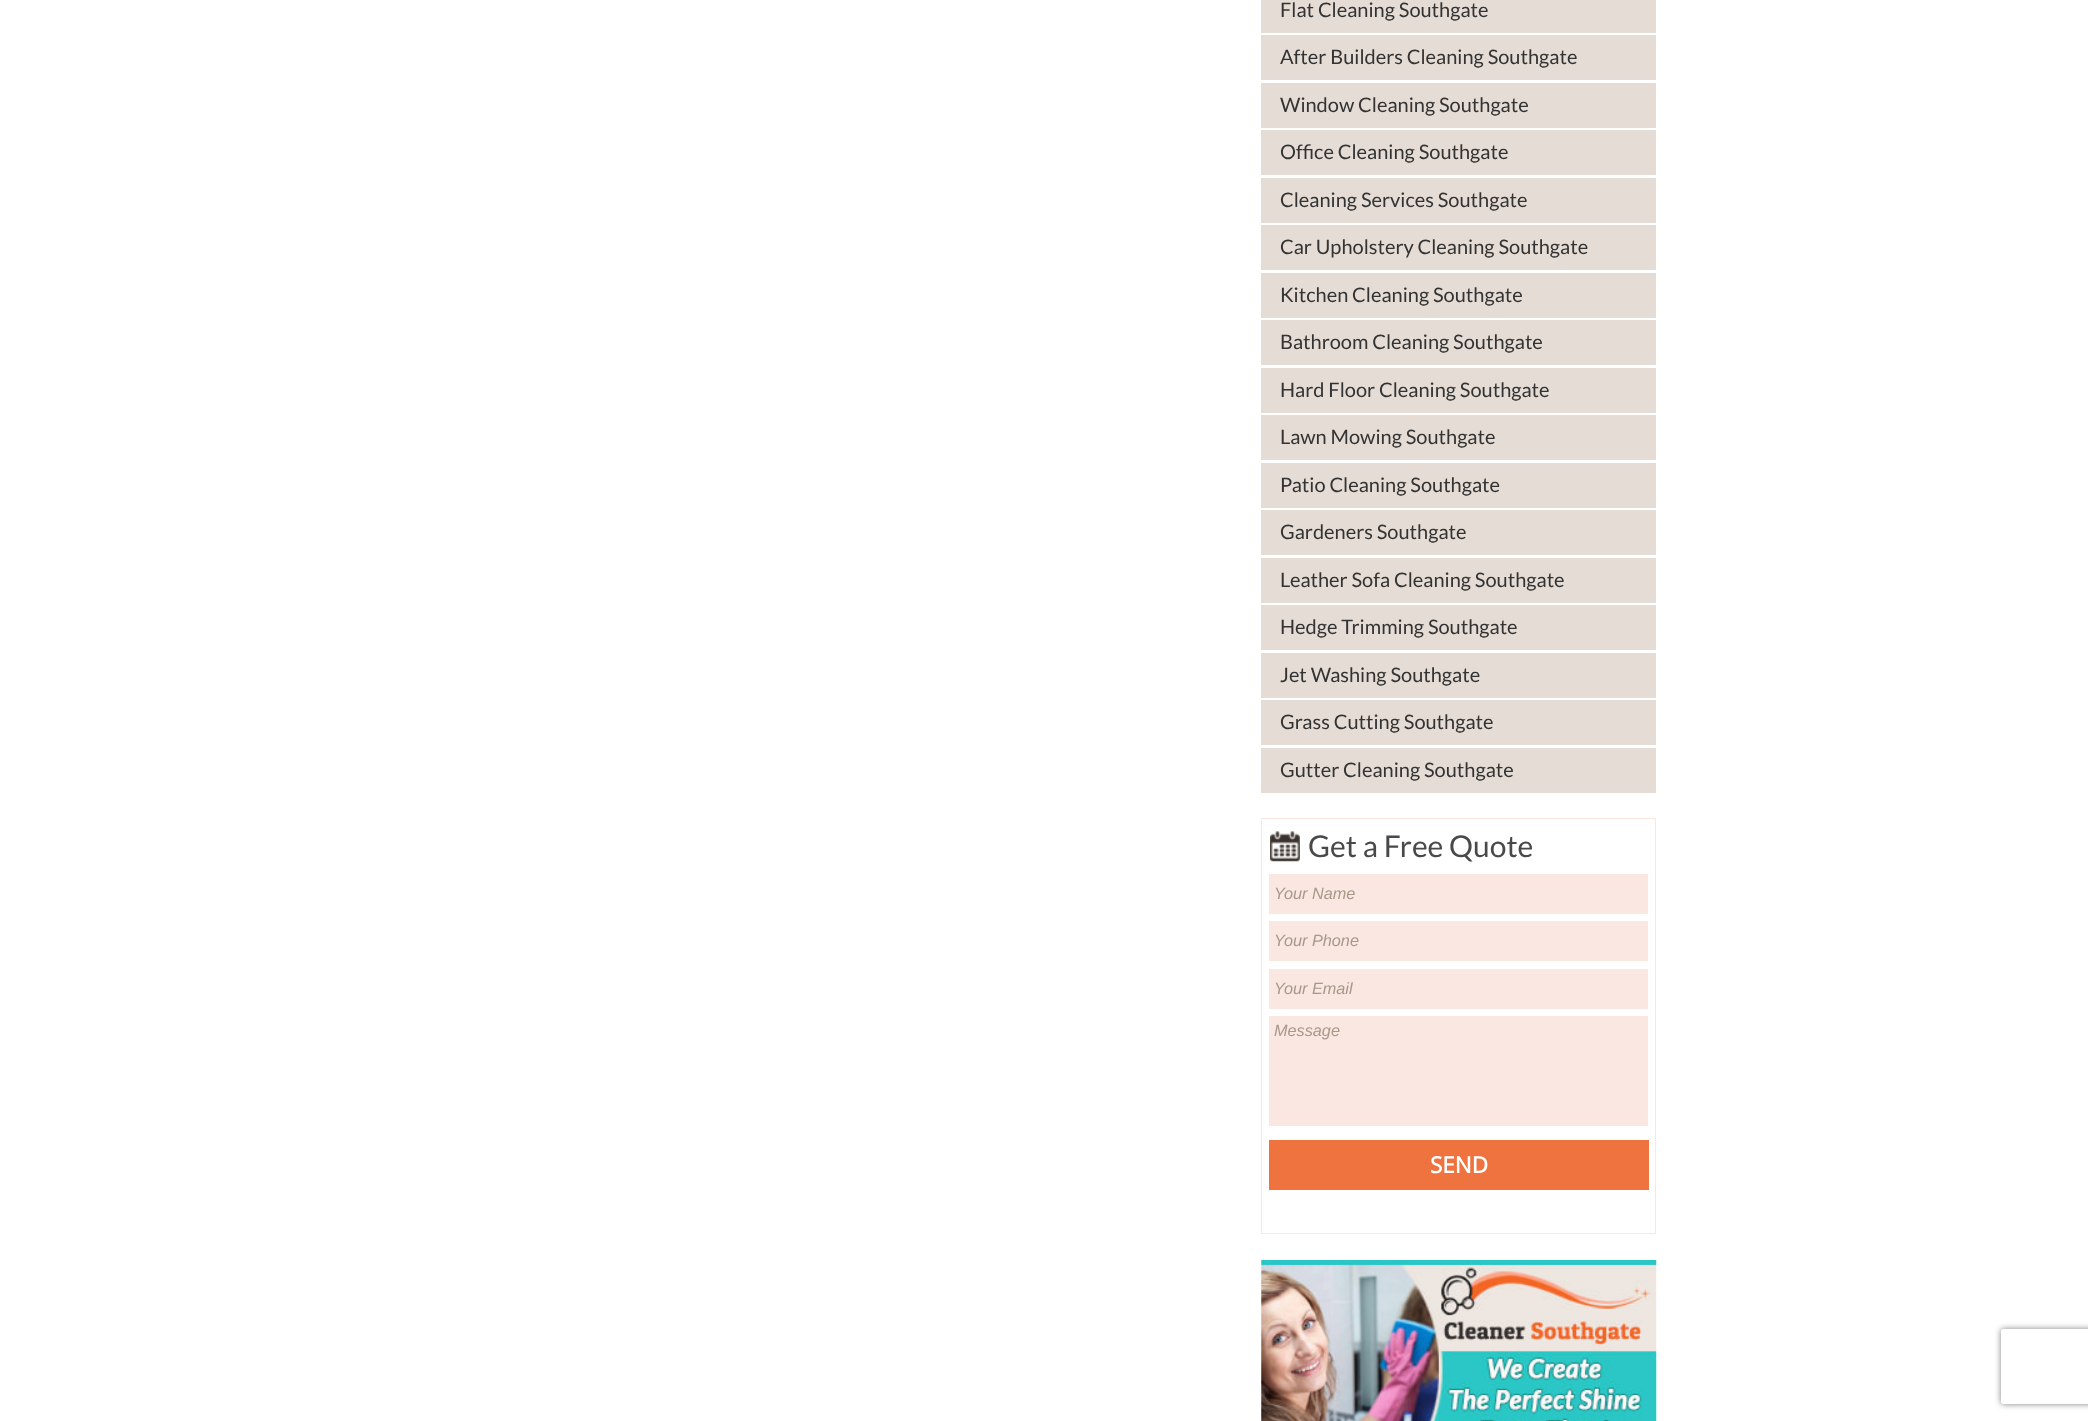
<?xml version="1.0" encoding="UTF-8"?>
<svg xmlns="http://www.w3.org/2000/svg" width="2088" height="1421">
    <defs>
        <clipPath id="clip1"><path d="M 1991 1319 H 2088 V 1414 H 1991 Z M 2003.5 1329 H 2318.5 C 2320 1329 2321 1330 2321 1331.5 V 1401.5 C 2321 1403 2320 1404 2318.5 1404 H 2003.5 C 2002 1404 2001 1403 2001 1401.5 V 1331.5 C 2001 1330 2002 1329 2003.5 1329 Z" clip-rule="evenodd"/></clipPath>
        <filter id="blur1" x="-50%" y="-200%" width="200%" height="500%"><feGaussianBlur stdDeviation="3"/></filter>
    </defs>
    <rect width="100%" height="100%" fill="#FFFFFF"/>
    <rect x="1261" y="0" width="395" height="33" fill="#E4DCD5"/>
    <text x="1280" y="17" font-family="Lato" font-size="20" fill="#333333">Flat Cleaning Southgate</text>
    <rect x="1261" y="35" width="395" height="45" fill="#E4DCD5"/>
    <text x="1280" y="64" font-family="Lato" font-size="20" fill="#333333">After Builders Cleaning Southgate</text>
    <rect x="1261" y="83" width="395" height="45" fill="#E4DCD5"/>
    <text x="1280" y="112" font-family="Lato" font-size="20" fill="#333333">Window Cleaning Southgate</text>
    <rect x="1261" y="130" width="395" height="45" fill="#E4DCD5"/>
    <text x="1280" y="159" font-family="Lato" font-size="20" fill="#333333">Office Cleaning Southgate</text>
    <rect x="1261" y="178" width="395" height="45" fill="#E4DCD5"/>
    <text x="1280" y="207" font-family="Lato" font-size="20" fill="#333333">Cleaning Services Southgate</text>
    <rect x="1261" y="225" width="395" height="45" fill="#E4DCD5"/>
    <text x="1280" y="254" font-family="Lato" font-size="20" fill="#333333">Car Upholstery Cleaning Southgate</text>
    <rect x="1261" y="273" width="395" height="45" fill="#E4DCD5"/>
    <text x="1280" y="302" font-family="Lato" font-size="20" fill="#333333">Kitchen Cleaning Southgate</text>
    <rect x="1261" y="320" width="395" height="45" fill="#E4DCD5"/>
    <text x="1280" y="349" font-family="Lato" font-size="20" fill="#333333">Bathroom Cleaning Southgate</text>
    <rect x="1261" y="368" width="395" height="45" fill="#E4DCD5"/>
    <text x="1280" y="397" font-family="Lato" font-size="20" fill="#333333">Hard Floor Cleaning Southgate</text>
    <rect x="1261" y="415" width="395" height="45" fill="#E4DCD5"/>
    <text x="1280" y="444" font-family="Lato" font-size="20" fill="#333333">Lawn Mowing Southgate</text>
    <rect x="1261" y="463" width="395" height="45" fill="#E4DCD5"/>
    <text x="1280" y="492" font-family="Lato" font-size="20" fill="#333333">Patio Cleaning Southgate</text>
    <rect x="1261" y="510" width="395" height="45" fill="#E4DCD5"/>
    <text x="1280" y="539" font-family="Lato" font-size="20" fill="#333333">Gardeners Southgate</text>
    <rect x="1261" y="558" width="395" height="45" fill="#E4DCD5"/>
    <text x="1280" y="587" font-family="Lato" font-size="20" fill="#333333">Leather Sofa Cleaning Southgate</text>
    <rect x="1261" y="605" width="395" height="45" fill="#E4DCD5"/>
    <text x="1280" y="634" font-family="Lato" font-size="20" fill="#333333">Hedge Trimming Southgate</text>
    <rect x="1261" y="653" width="395" height="45" fill="#E4DCD5"/>
    <text x="1280" y="682" font-family="Lato" font-size="20" fill="#333333">Jet Washing Southgate</text>
    <rect x="1261" y="700" width="395" height="45" fill="#E4DCD5"/>
    <text x="1280" y="729" font-family="Lato" font-size="20" fill="#333333">Grass Cutting Southgate</text>
    <rect x="1261" y="748" width="395" height="45" fill="#E4DCD5"/>
    <text x="1280" y="777" font-family="Lato" font-size="20" fill="#333333">Gutter Cleaning Southgate</text>
    <rect x="1261.5" y="818.5" width="394" height="415" fill="none" stroke="#FAE7E1"/>
    <image x="1270" y="831" width="30" height="31" href="img_01.png"/>
    <text x="1308" y="857" font-family="Lato" font-size="30" fill="#4A4949">Get a Free Quote</text>
    <rect x="1269" y="874" width="379" height="40" fill="#FAE7E1"/>
    <text x="1274" y="899" font-family="Liberation Sans" font-size="16.25" font-style="italic" fill="#A59988">Your Name</text>
    <rect x="1269" y="921" width="379" height="40" fill="#FAE7E1"/>
    <text x="1274" y="946" font-family="Liberation Sans" font-size="16.25" font-style="italic" fill="#A59988">Your Phone</text>
    <rect x="1269" y="969" width="379" height="40" fill="#FAE7E1"/>
    <text x="1274" y="994" font-family="Liberation Sans" font-size="16.25" font-style="italic" fill="#A59988">Your Email</text>
    <rect x="1269" y="1016" width="379" height="110" fill="#FAE7E1"/>
    <text x="1274" y="1036" font-family="Liberation Sans" font-size="16.25" font-style="italic" fill="#A59988">Message</text>
    <rect x="1269" y="1140" width="380" height="50" fill="#EF733F"/>
    <text x="1430" y="1173" font-family="Open Sans" font-size="22.5" font-weight="700" fill="#FFFFFF">SEND</text>
    <image x="1261" y="1260" width="396" height="161" href="img_02.png"/>
    <g clip-path="url(#clip1)">
        <rect x="2001" y="1329" width="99" height="75" rx="2.5" fill="#808080" filter="url(#blur1)"/>
    </g>
</svg>
